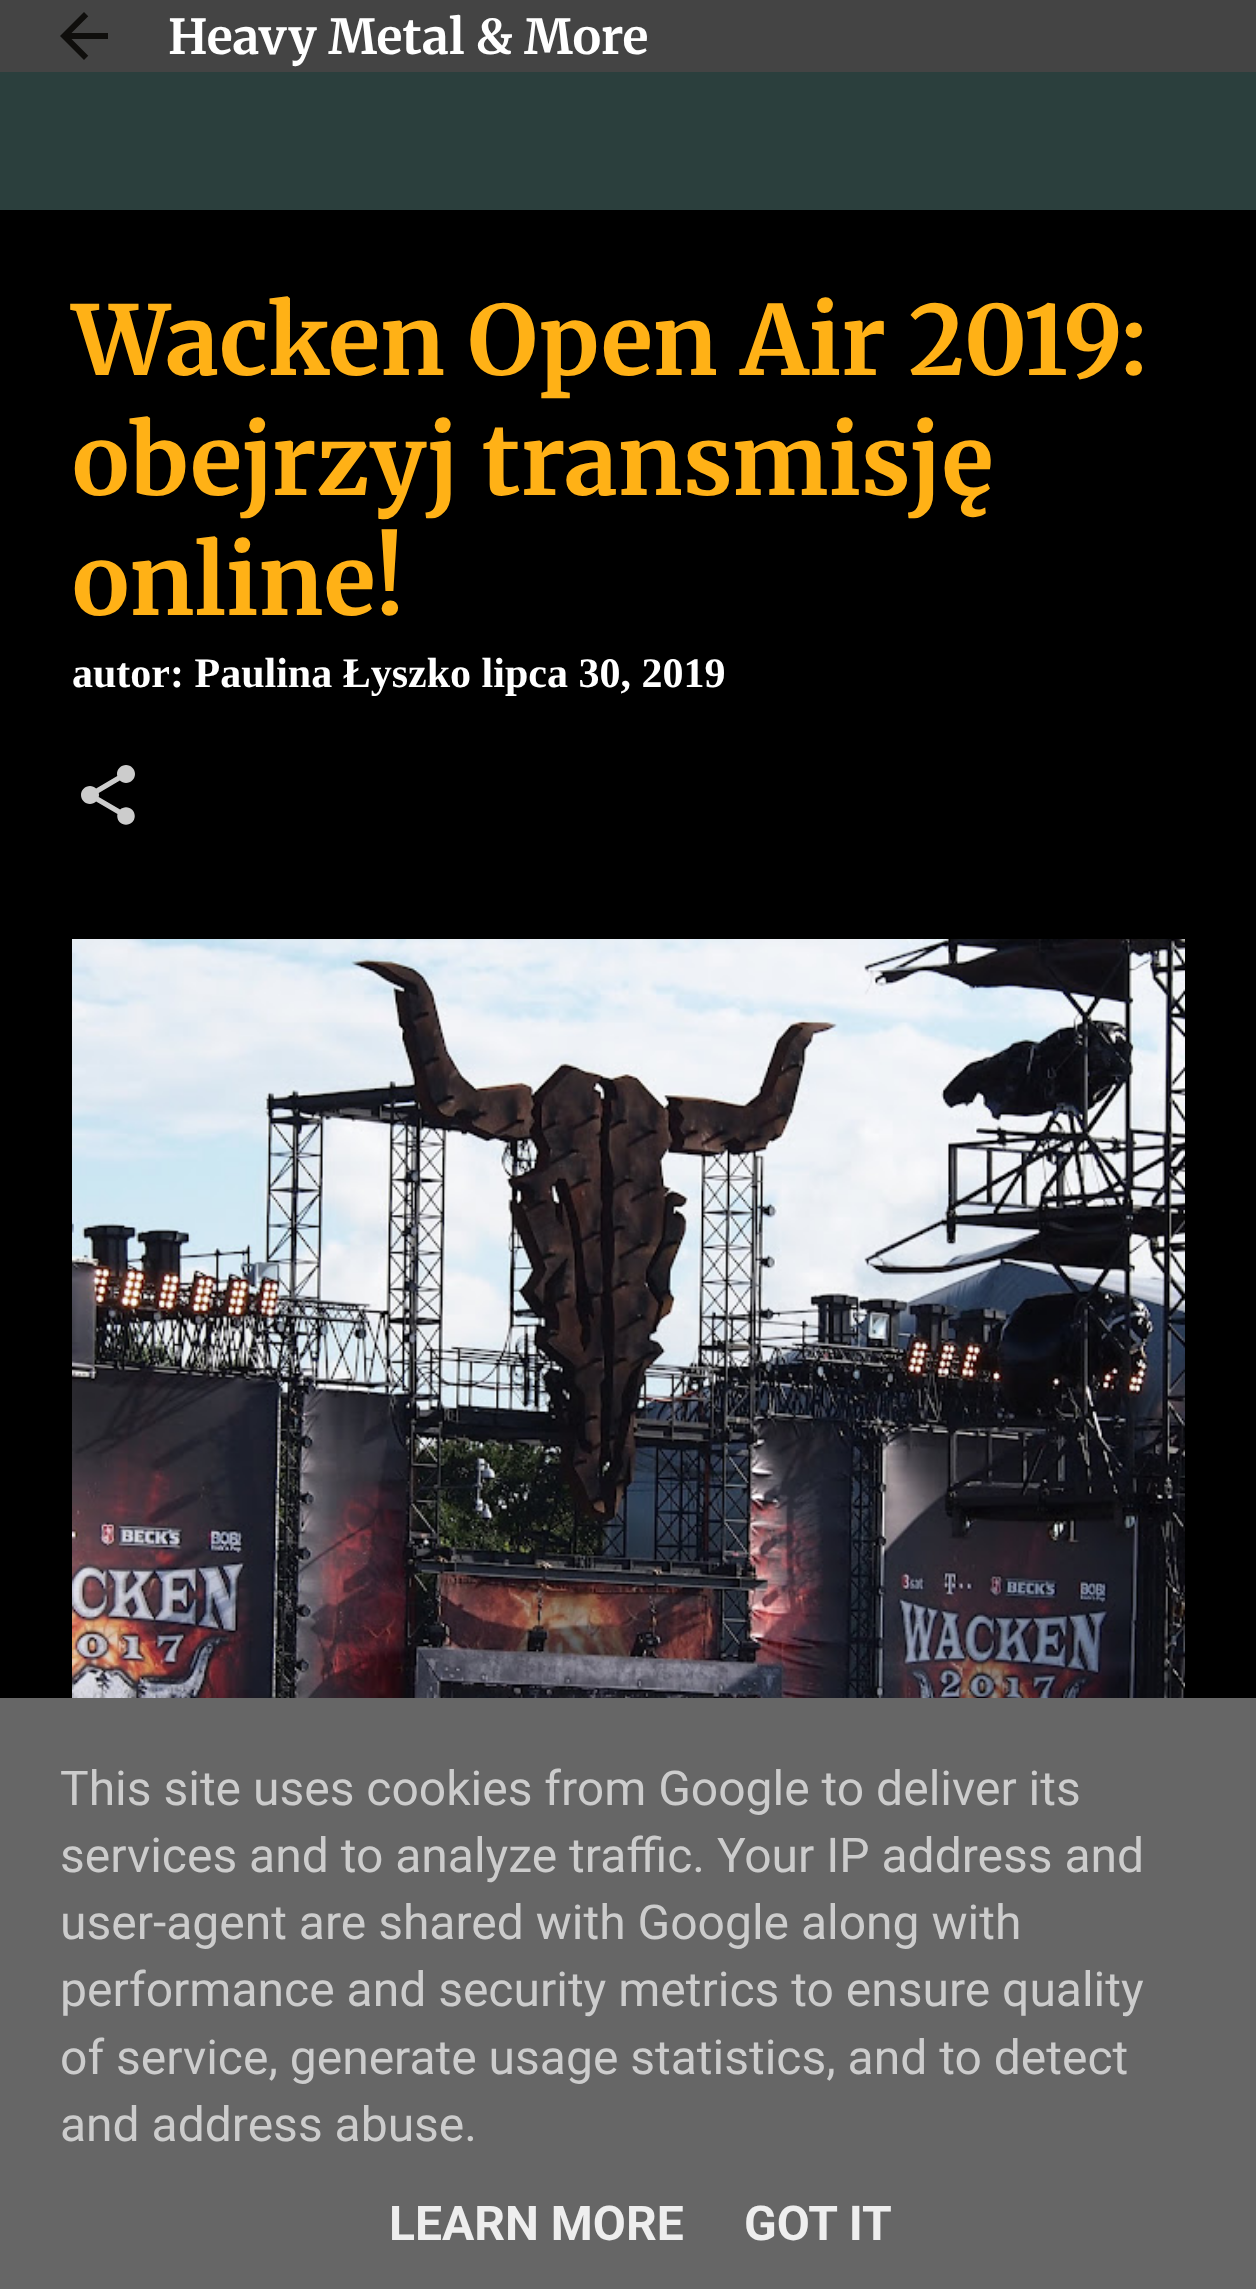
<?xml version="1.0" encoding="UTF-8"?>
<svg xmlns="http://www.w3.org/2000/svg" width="1256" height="2289">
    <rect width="100%" height="100%" fill="#2B3F3D"/>
    <rect x="0" y="0" width="1256" height="72" fill="#444444"/>
    <image x="60" y="12" width="48" height="48" href="img_01.png"/>
    <text x="168" y="54" font-family="Merriweather" font-size="48" font-weight="700" fill="#FFFFFF">Heavy Metal &amp; More</text>
    <rect x="0" y="210" width="1256" height="1488" fill="#000000"/>
    <text font-family="Merriweather" font-size="96" font-weight="700" fill="#FFB116">
        <tspan x="72" y="375">Wacken Open Air 2019:</tspan>
        <tspan x="72" y="495">obejrzyj transmisję</tspan>
        <tspan x="72" y="615">online!</tspan>
    </text>
    <text x="72" y="687" font-family="Liberation Serif" font-size="42" font-weight="700" fill="#FFFFFF">autor: Paulina Łyszko lipca 30, 2019</text>
    <image x="81" y="765" width="54" height="60" href="img_02.png"/>
    <image x="72" y="939" width="1113" height="759" href="img_03.png"/>
    <rect x="0" y="1698" width="1256" height="591" fill="#666666"/>
    <text font-family="Roboto" font-size="48" fill="#CCCCCC">
        <tspan x="60" y="1805">This site uses cookies from Google to deliver its</tspan>
        <tspan x="60" y="1872">services and to analyze traffic. Your IP address and</tspan>
        <tspan x="60" y="1939">user-agent are shared with Google along with</tspan>
        <tspan x="60" y="2006">performance and security metrics to ensure quality</tspan>
        <tspan x="60" y="2074">of service, generate usage statistics, and to detect</tspan>
        <tspan x="60" y="2141">and address abuse.</tspan>
    </text>
    <text x="389" y="2240" font-family="Roboto" font-size="48" font-weight="700" fill="#EEEEEE">LEARN MORE</text>
    <text x="744" y="2240" font-family="Roboto" font-size="48" font-weight="700" fill="#EEEEEE">GOT IT</text>
</svg>
